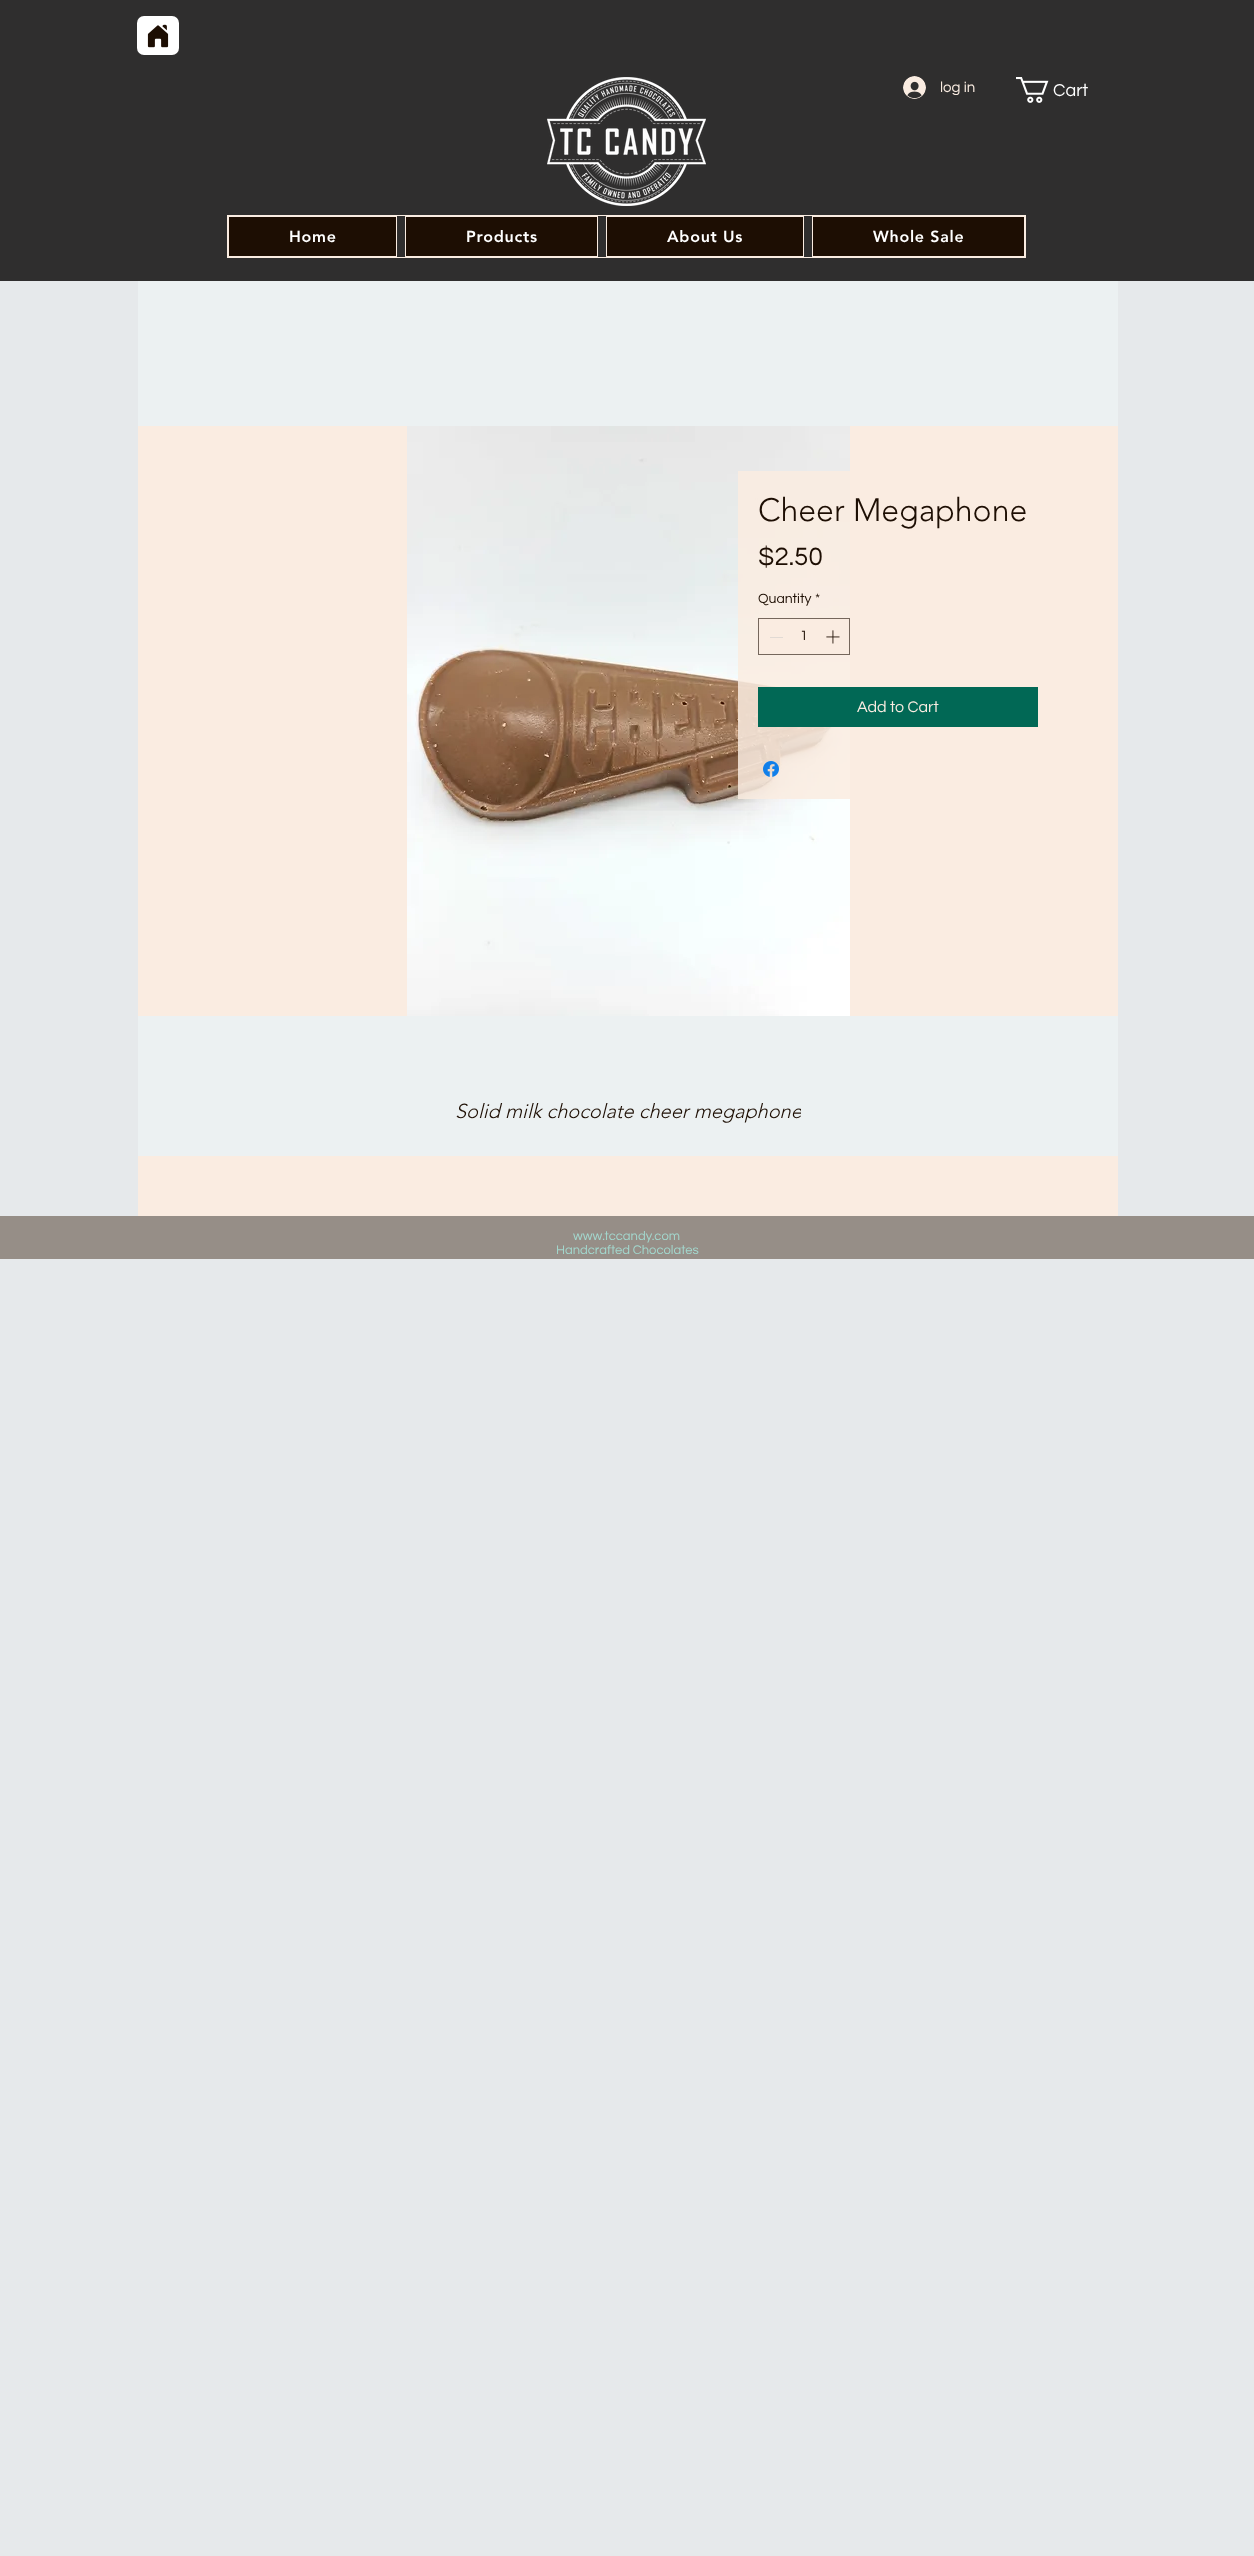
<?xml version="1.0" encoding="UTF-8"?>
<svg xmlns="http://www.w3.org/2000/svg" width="1254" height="2556">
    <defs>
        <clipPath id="clip1"><rect x="455" y="1096" width="346" height="30"/></clipPath>
    </defs>
    <rect width="100%" height="100%" fill="#E6E9EB"/>
    <rect x="0" y="0" width="1254" height="281" fill="#2F2E2E"/>
    <rect x="137" y="16" width="42" height="39" rx="7" fill="#FFFFFF"/>
    <image x="147" y="24" width="22" height="24" href="img_01.png"/>
    <image x="547" y="77" width="159" height="129" href="img_02.png"/>
    <image x="903" y="76" width="23" height="23" href="img_03.png"/>
    <text x="940" y="92" font-family="Questrial" font-size="15" fill="#FAECE1">log in</text>
    <image x="1016" y="77" width="33" height="26" href="img_04.png"/>
    <text x="1053" y="96" font-family="Questrial" font-size="18" fill="#FFFFFF">Cart</text>
    <rect x="227.5" y="215.5" width="798" height="42" fill="none" stroke="#FAECE1"/>
    <rect x="228.5" y="216.5" width="168" height="40" fill="#1D0E03" stroke="#FAECE1"/>
    <text x="289" y="242" font-family="'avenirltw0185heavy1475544'" font-size="16" font-weight="900" letter-spacing="0.75" fill="#FFFFFF">Home</text>
    <rect x="405.5" y="216.5" width="192" height="40" fill="#1D0E03" stroke="#FAECE1"/>
    <text x="466" y="242" font-family="'avenirltw0185heavy1475544'" font-size="16" font-weight="900" letter-spacing="0.75" fill="#FFFFFF">Products</text>
    <rect x="606.5" y="216.5" width="197" height="40" fill="#1D0E03" stroke="#FAECE1"/>
    <text x="667" y="242" font-family="'avenirltw0185heavy1475544'" font-size="16" font-weight="900" letter-spacing="0.75" fill="#FFFFFF">About Us</text>
    <rect x="812.5" y="216.5" width="212" height="40" fill="#1D0E03" stroke="#FAECE1"/>
    <text x="873" y="242" font-family="'avenirltw0185heavy1475544'" font-size="16" font-weight="900" letter-spacing="0.75" fill="#FFFFFF">Whole Sale</text>
    <rect x="138" y="281" width="980" height="875" fill="#ECF1F2"/>
    <rect x="138" y="426" width="980" height="590" fill="#FAECE1"/>
    <image x="407" y="426" width="443" height="590" href="img_05.png"/>
    <rect x="738" y="471" width="112" height="328" fill="#FAECE1" fill-opacity="0.85"/>
    <text x="758" y="521" font-family="'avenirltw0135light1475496'" font-size="32" font-weight="300" fill="#1D0E03">Cheer Megaphone</text>
    <text x="758" y="565" font-family="Questrial" font-size="26" fill="#1D0E03">$2.50</text>
    <text x="758" y="603" font-family="Questrial" font-size="14" fill="#1D0E03">Quantity</text>
    <text x="815" y="603" font-family="Questrial" font-size="14" fill="#1D0E03">*</text>
    <rect x="758.5" y="618.5" width="91" height="36" fill="#FAECE1" stroke="#75675C"/>
    <rect x="770" y="637" width="13" height="1" fill="#E1DAD4"/>
    <text x="800" y="640" font-family="Questrial" font-size="14" fill="#1D0E03">1</text>
    <image x="826" y="630" width="14" height="14" href="img_06.png"/>
    <rect x="758" y="687" width="280" height="40" fill="#016855"/>
    <text x="857" y="712" font-family="Questrial" font-size="16" fill="#FAECE1">Add to Cart</text>
    <image x="763" y="761" width="16" height="16" href="img_07.png"/>
    <g clip-path="url(#clip1)">
        <text x="455" y="1118" font-family="'avenirltw0135light1475496'" font-size="20" font-weight="300" font-style="italic" fill="#1D0E03">Solid milk chocolate cheer megaphone</text>
    </g>
    <rect x="138" y="1156" width="980" height="60" fill="#FAECE1"/>
    <rect x="0" y="1216" width="1254" height="43" fill="#968E87"/>
    <text x="573" y="1240" font-family="Questrial" font-size="13" fill="#A3D9CF">www.tccandy.com</text>
    <text x="556" y="1254" font-family="Questrial" font-size="13" fill="#A3D9CF">Handcrafted Chocolates</text>
</svg>
